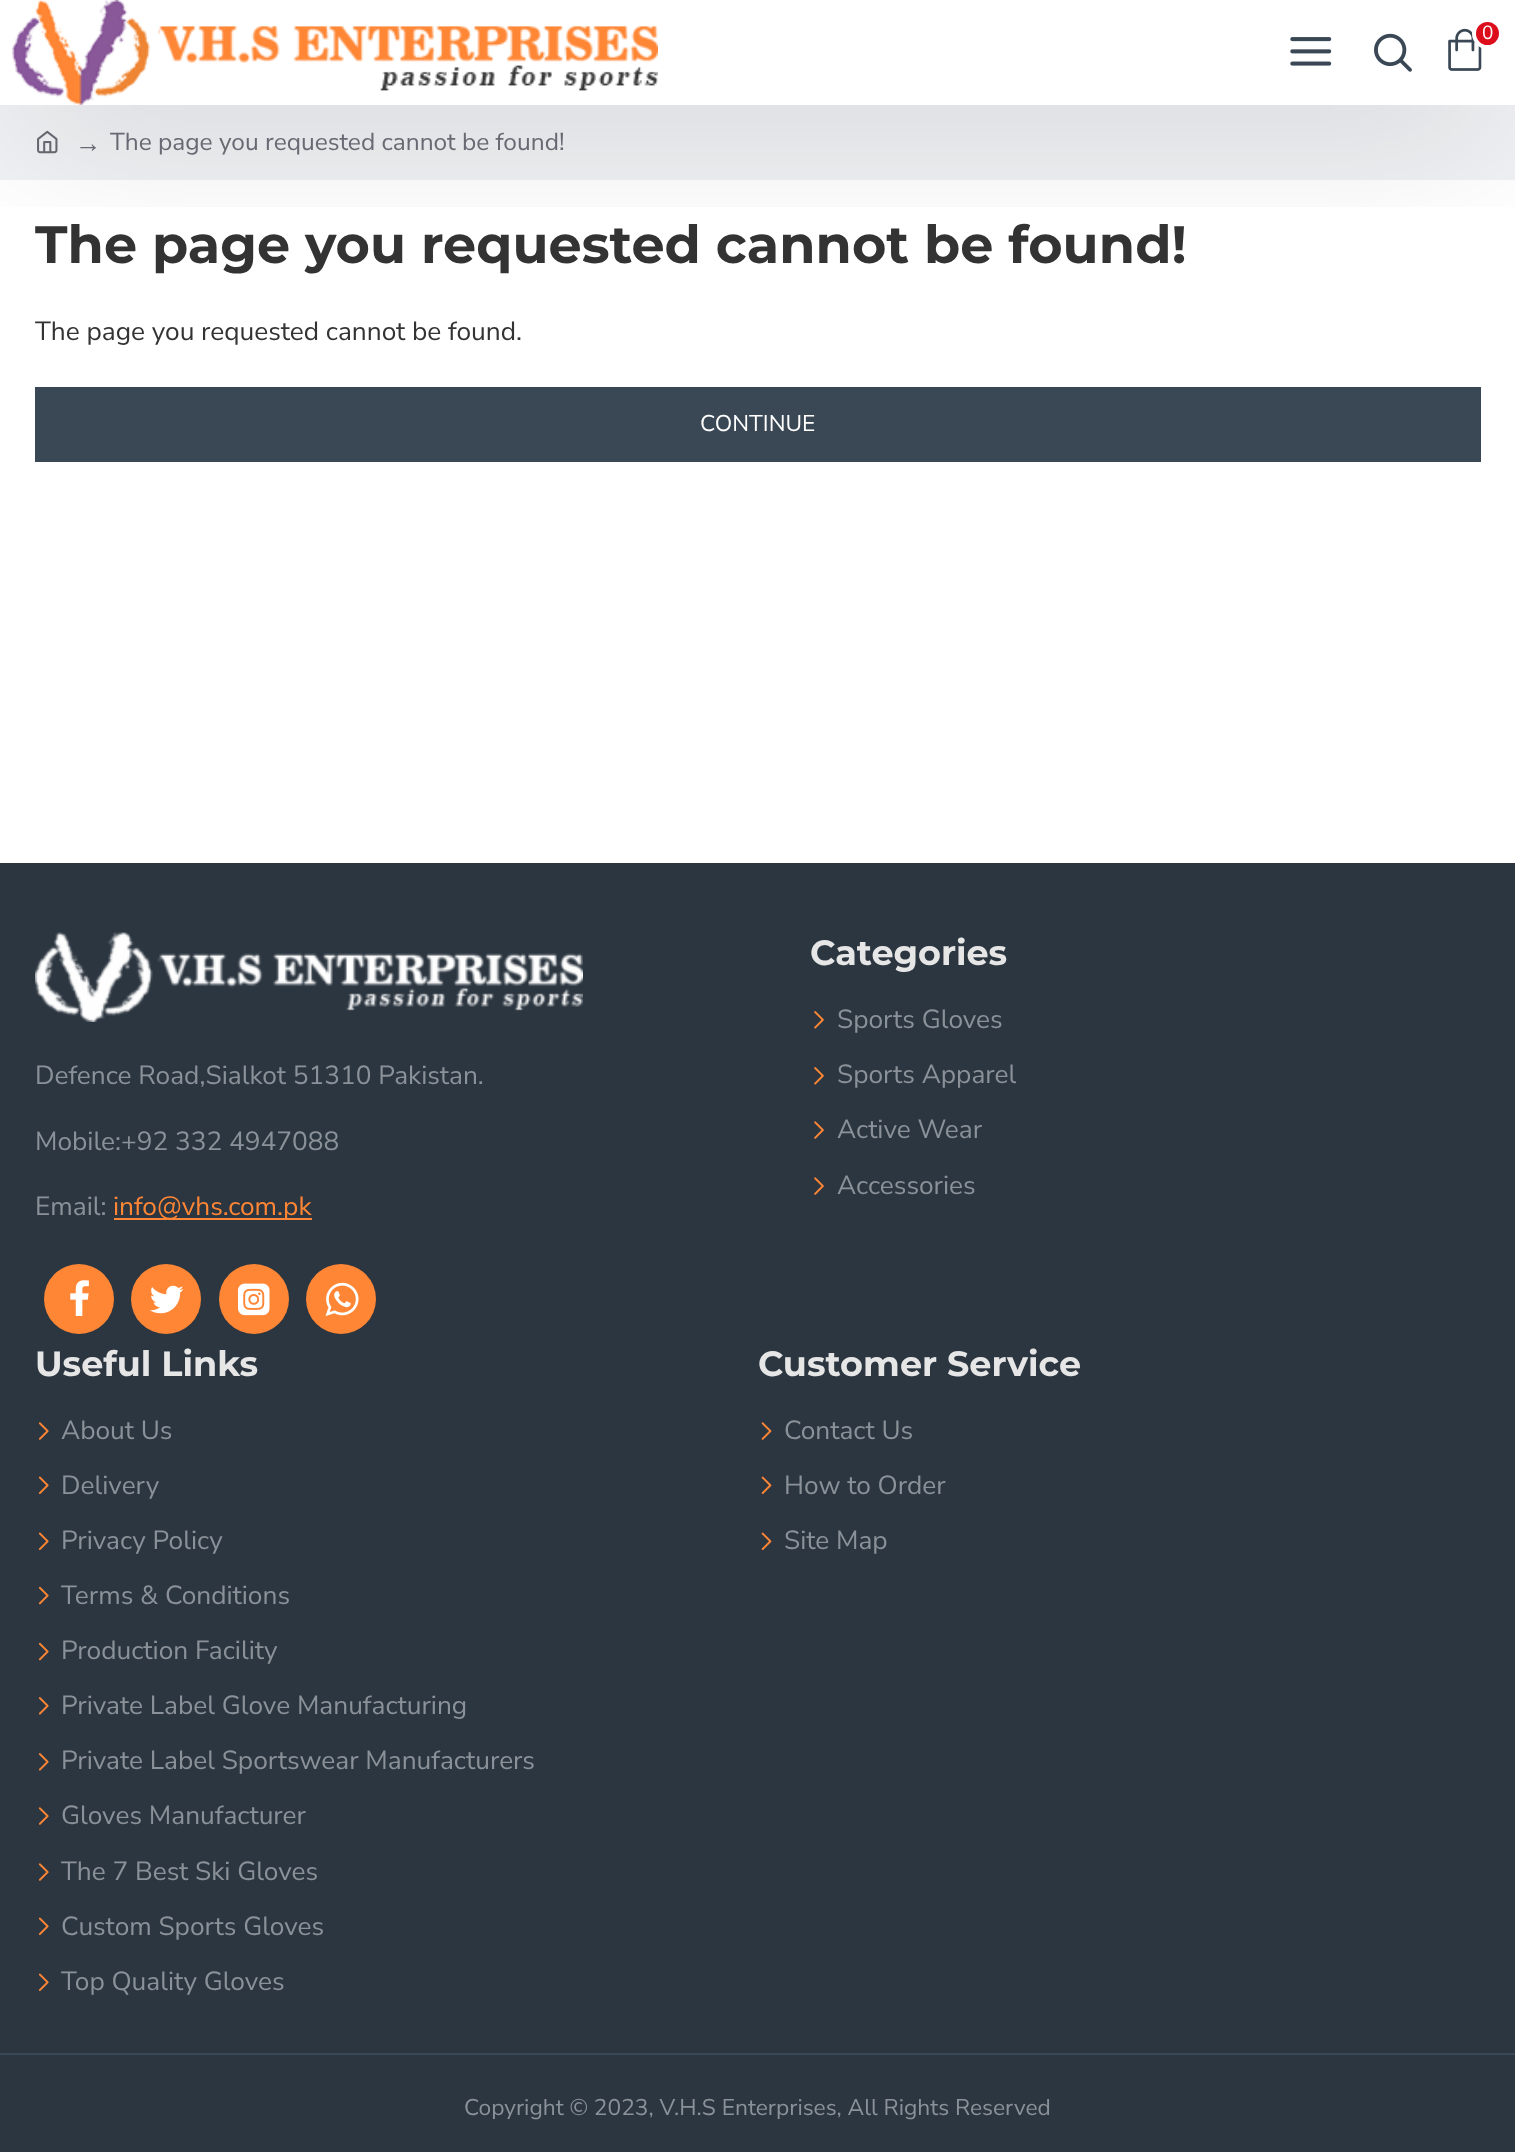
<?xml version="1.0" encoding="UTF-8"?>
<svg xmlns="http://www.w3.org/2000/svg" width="1515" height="2152">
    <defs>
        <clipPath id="clip1"><rect x="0" y="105" width="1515" height="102"/></clipPath>
        <filter id="blur1" x="-50%" y="-200%" width="200%" height="500%"><feGaussianBlur stdDeviation="79"/></filter>
    </defs>
    <rect width="100%" height="100%" fill="#FFFFFF"/>
    <rect x="0" y="105" width="1515" height="75" fill="#F0F2F5"/>
    <image x="37" y="130" width="21" height="24" href="img_05.png"/>
    <g clip-path="url(#clip1)">
        <rect x="18" y="44" width="1480" height="70" fill="#000000" fill-opacity="0.2" filter="url(#blur1)"/>
    </g>
    <image x="12" y="0" width="646" height="105" href="img_01.png"/>
    <image x="1290" y="37" width="42" height="29" href="img_02.png"/>
    <image x="1374" y="33" width="38" height="39" href="img_03.png"/>
    <image x="1448" y="28" width="34" height="43" href="img_04.png"/>
    <circle cx="1487.5" cy="33.5" r="13.5" fill="#DD0E1C" stroke="#FFFFFF" stroke-width="4"/>
    <text x="1482" y="39" font-family="Nunito Sans" font-size="19" fill="#FFFFFF">0</text>
    <text x="75" y="152" font-family="Liberation Serif" font-size="26.25" fill="#696973">→</text>
    <text x="110" y="150" font-family="Nunito Sans" font-size="24.5" fill="#696973">The page you requested cannot be found!</text>
    <text x="35" y="263" font-family="Montserrat" font-size="52.5" font-weight="700" fill="#333333">The page you requested cannot be found!</text>
    <text x="35" y="340" font-family="Nunito Sans" font-size="26.25" fill="#333333">The page you requested cannot be found.</text>
    <rect x="35" y="387" width="1446" height="75" fill="#3A4754"/>
    <text x="700" y="431" font-family="Nunito Sans" font-size="22.75" fill="#FFFFFF">CONTINUE</text>
    <rect x="0" y="863" width="1515" height="1289" fill="#2C3640"/>
    <image x="35" y="932" width="548" height="90" href="img_06.png"/>
    <text x="35" y="1084" font-family="Nunito Sans" font-size="26.25" fill="#8B9198">Defence Road,Sialkot 51310 Pakistan.</text>
    <text x="35" y="1150" font-family="Nunito Sans" font-size="26.25" fill="#8B9198">Mobile:+92 332 4947088</text>
    <text x="35" y="1215" font-family="Nunito Sans" font-size="26.25" fill="#8B9198">Email:</text>
    <rect x="114" y="1218" width="198" height="2" fill="#FF8635"/>
    <text x="113" y="1215" font-family="Nunito Sans" font-size="26.25" fill="#FF8635">info@vhs.com.pk</text>
    <circle cx="79" cy="1299" r="35" fill="#FF8635"/>
    <image x="70" y="1280" width="19" height="36" href="img_07.png"/>
    <circle cx="166" cy="1299" r="35" fill="#FF8635"/>
    <image x="149" y="1285" width="35" height="29" href="img_08.png"/>
    <circle cx="254" cy="1299" r="35" fill="#FF8635"/>
    <image x="238" y="1283" width="32" height="33" href="img_09.png"/>
    <circle cx="341" cy="1299" r="35" fill="#FF8635"/>
    <image x="325" y="1282" width="34" height="34" href="img_10.png"/>
    <text x="810" y="965" font-family="Montserrat" font-size="35" font-weight="700" fill="#E6E6E6">Categories</text>
    <image x="814" y="1011" width="10" height="18" href="img_11.png"/>
    <text x="837" y="1028" font-family="Nunito Sans" font-size="26.25" fill="#8B9198">Sports Gloves</text>
    <image x="814" y="1067" width="10" height="18" href="img_11.png"/>
    <text x="837" y="1083" font-family="Nunito Sans" font-size="26.25" fill="#8B9198">Sports Apparel</text>
    <image x="814" y="1121" width="10" height="18" href="img_12.png"/>
    <text x="837" y="1138" font-family="Nunito Sans" font-size="26.25" fill="#8B9198">Active Wear</text>
    <image x="814" y="1177" width="10" height="18" href="img_12.png"/>
    <text x="837" y="1194" font-family="Nunito Sans" font-size="26.25" fill="#8B9198">Accessories</text>
    <text x="35" y="1376" font-family="Montserrat" font-size="35" font-weight="700" fill="#E6E6E6">Useful Links</text>
    <image x="38" y="1422" width="11" height="18" href="img_13.png"/>
    <text x="61" y="1439" font-family="Nunito Sans" font-size="26.25" fill="#8B9198">About Us</text>
    <image x="38" y="1476" width="11" height="19" href="img_14.png"/>
    <text x="61" y="1494" font-family="Nunito Sans" font-size="26.25" fill="#8B9198">Delivery</text>
    <image x="38" y="1532" width="11" height="19" href="img_14.png"/>
    <text x="61" y="1549" font-family="Nunito Sans" font-size="26.25" fill="#8B9198">Privacy Policy</text>
    <image x="38" y="1586" width="11" height="19" href="img_15.png"/>
    <text x="61" y="1604" font-family="Nunito Sans" font-size="26.25" fill="#8B9198">Terms &amp; Conditions</text>
    <image x="38" y="1642" width="11" height="19" href="img_15.png"/>
    <text x="61" y="1659" font-family="Nunito Sans" font-size="26.25" fill="#8B9198">Production Facility</text>
    <image x="38" y="1697" width="11" height="18" href="img_16.png"/>
    <text x="61" y="1714" font-family="Nunito Sans" font-size="26.25" fill="#8B9198">Private Label Glove Manufacturing</text>
    <image x="38" y="1753" width="11" height="18" href="img_16.png"/>
    <text x="61" y="1769" font-family="Nunito Sans" font-size="26.25" fill="#8B9198">Private Label Sportswear Manufacturers</text>
    <image x="38" y="1807" width="11" height="18" href="img_13.png"/>
    <text x="61" y="1824" font-family="Nunito Sans" font-size="26.25" fill="#8B9198">Gloves Manufacturer</text>
    <image x="38" y="1863" width="11" height="18" href="img_13.png"/>
    <text x="61" y="1880" font-family="Nunito Sans" font-size="26.25" fill="#8B9198">The 7 Best Ski Gloves</text>
    <image x="38" y="1917" width="11" height="19" href="img_14.png"/>
    <text x="61" y="1935" font-family="Nunito Sans" font-size="26.25" fill="#8B9198">Custom Sports Gloves</text>
    <image x="38" y="1973" width="11" height="19" href="img_14.png"/>
    <text x="61" y="1990" font-family="Nunito Sans" font-size="26.25" fill="#8B9198">Top Quality Gloves</text>
    <text x="758" y="1376" font-family="Montserrat" font-size="35" font-weight="700" fill="#E6E6E6">Customer Service</text>
    <image x="761" y="1422" width="11" height="18" href="img_17.png"/>
    <text x="784" y="1439" font-family="Nunito Sans" font-size="26.25" fill="#8B9198">Contact Us</text>
    <image x="761" y="1476" width="11" height="19" href="img_18.png"/>
    <text x="784" y="1494" font-family="Nunito Sans" font-size="26.25" fill="#8B9198">How to Order</text>
    <image x="761" y="1532" width="11" height="19" href="img_18.png"/>
    <text x="784" y="1549" font-family="Nunito Sans" font-size="26.25" fill="#8B9198">Site Map</text>
    <rect x="0" y="2053" width="1515" height="2" fill="#3A4754"/>
    <text x="464" y="2115" font-family="Nunito Sans" font-size="22.75" fill="#8B9198">Copyright © 2023, V.H.S Enterprises, All Rights Reserved</text>
</svg>
